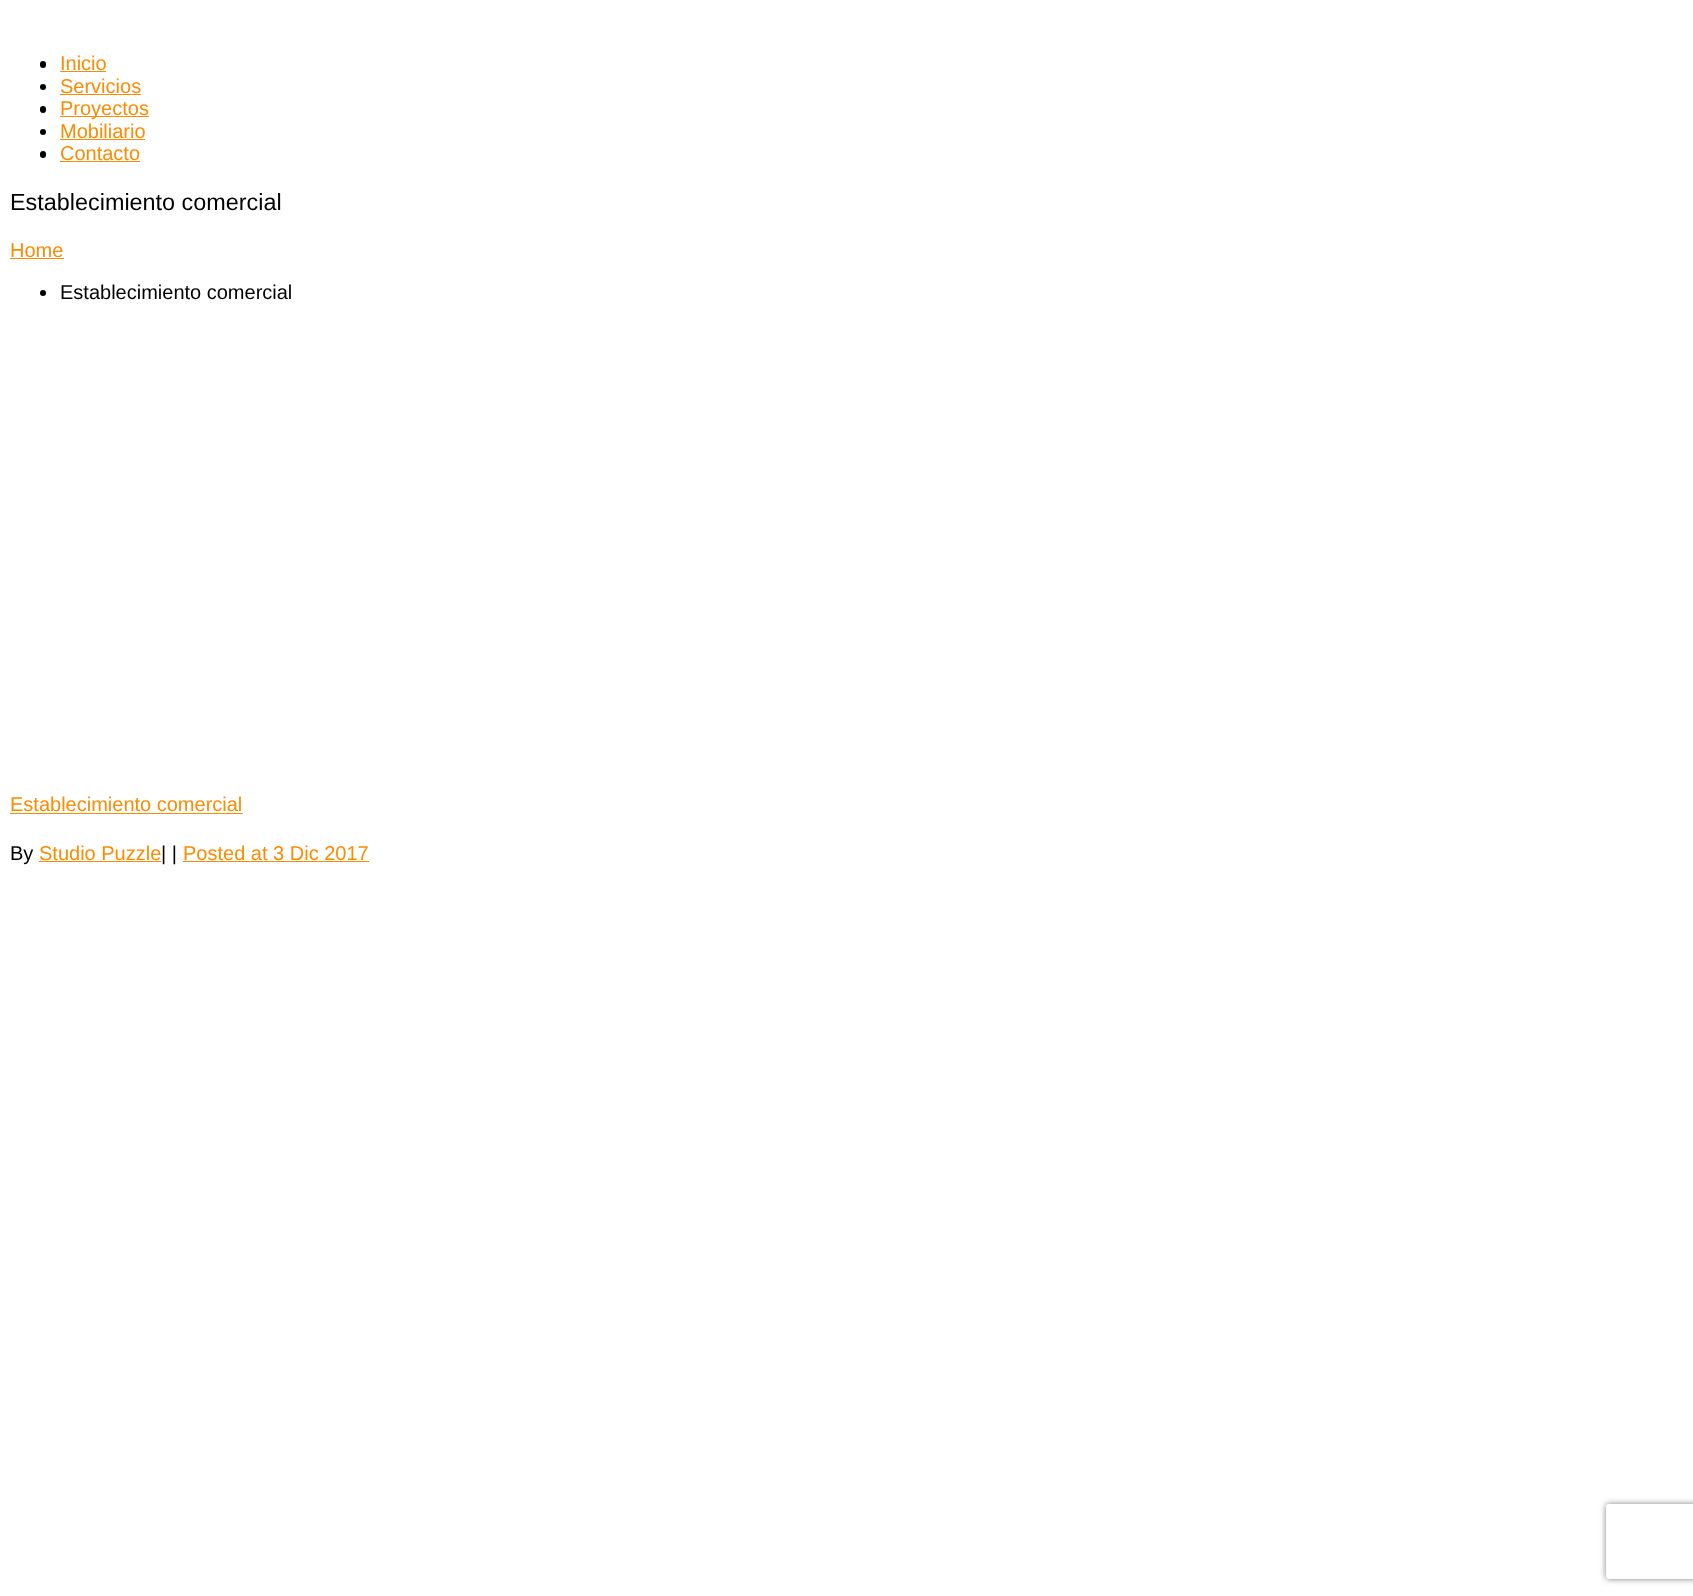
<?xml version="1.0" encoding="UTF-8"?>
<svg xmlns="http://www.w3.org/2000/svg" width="1693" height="1596">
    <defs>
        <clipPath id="clip1"><path d="M 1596 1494 H 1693 V 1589 H 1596 Z M 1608.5 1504 H 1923.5 C 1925 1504 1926 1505 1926 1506.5 V 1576.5 C 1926 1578 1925 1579 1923.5 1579 H 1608.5 C 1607 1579 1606 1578 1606 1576.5 V 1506.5 C 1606 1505 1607 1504 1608.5 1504 Z" clip-rule="evenodd"/></clipPath>
        <filter id="blur1" x="-50%" y="-200%" width="200%" height="500%"><feGaussianBlur stdDeviation="3"/></filter>
    </defs>
    <rect width="100%" height="100%" fill="#FFFFFF"/>
    <rect x="40" y="61" width="6" height="7" rx="3" fill="#000000"/>
    <text x="60" y="70" font-family="Liberation Sans" font-size="20" fill="#FB8B00">Inicio</text>
    <rect x="60" y="71" width="46" height="1" fill="#FB8B00"/>
    <circle cx="43" cy="87" r="3" fill="#000000"/>
    <text x="60" y="93" font-family="Liberation Sans" font-size="20" fill="#FB8B00">Servicios</text>
    <rect x="60" y="94" width="81" height="1" fill="#FB8B00"/>
    <rect x="40" y="106" width="6" height="7" rx="3" fill="#000000"/>
    <rect x="60" y="116" width="89" height="1" fill="#FB8B00"/>
    <text x="60" y="115" font-family="Liberation Sans" font-size="20" fill="#FB8B00">Proyectos</text>
    <circle cx="43" cy="132" r="3" fill="#000000"/>
    <text x="60" y="138" font-family="Liberation Sans" font-size="20" fill="#FB8B00">Mobiliario</text>
    <rect x="60" y="139" width="85" height="1" fill="#FB8B00"/>
    <rect x="40" y="151" width="6" height="7" rx="3" fill="#000000"/>
    <text x="60" y="160" font-family="Liberation Sans" font-size="20" fill="#FB8B00">Contacto</text>
    <rect x="60" y="161" width="80" height="1" fill="#FB8B00"/>
    <text x="10" y="210" font-family="Liberation Sans" font-size="23.4" fill="#000000">Establecimiento comercial</text>
    <text x="10" y="257" font-family="Liberation Sans" font-size="20" fill="#FB8B00">Home</text>
    <rect x="10" y="258" width="54" height="1" fill="#FB8B00"/>
    <circle cx="43" cy="293" r="3" fill="#000000"/>
    <text x="60" y="299" font-family="Liberation Sans" font-size="20" fill="#000000">Establecimiento comercial</text>
    <text x="10" y="811" font-family="Liberation Sans" font-size="20" fill="#FB8B00">Establecimiento comercial</text>
    <rect x="10" y="813" width="233" height="1" fill="#FB8B00"/>
    <text x="10" y="860" font-family="Liberation Sans" font-size="20" fill="#000000">By</text>
    <text x="39" y="860" font-family="Liberation Sans" font-size="20" fill="#FB8B00">Studio Puzzle</text>
    <rect x="39" y="861" width="122" height="1" fill="#FB8B00"/>
    <text x="161" y="860" font-family="Liberation Sans" font-size="20" fill="#000000">| |</text>
    <text x="183" y="860" font-family="Liberation Sans" font-size="20" fill="#FB8B00">Posted at 3 Dic 2017</text>
    <rect x="183" y="861" width="186" height="1" fill="#FB8B00"/>
    <g clip-path="url(#clip1)">
        <rect x="1606" y="1504" width="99" height="75" rx="2.5" fill="#808080" filter="url(#blur1)"/>
    </g>
</svg>
